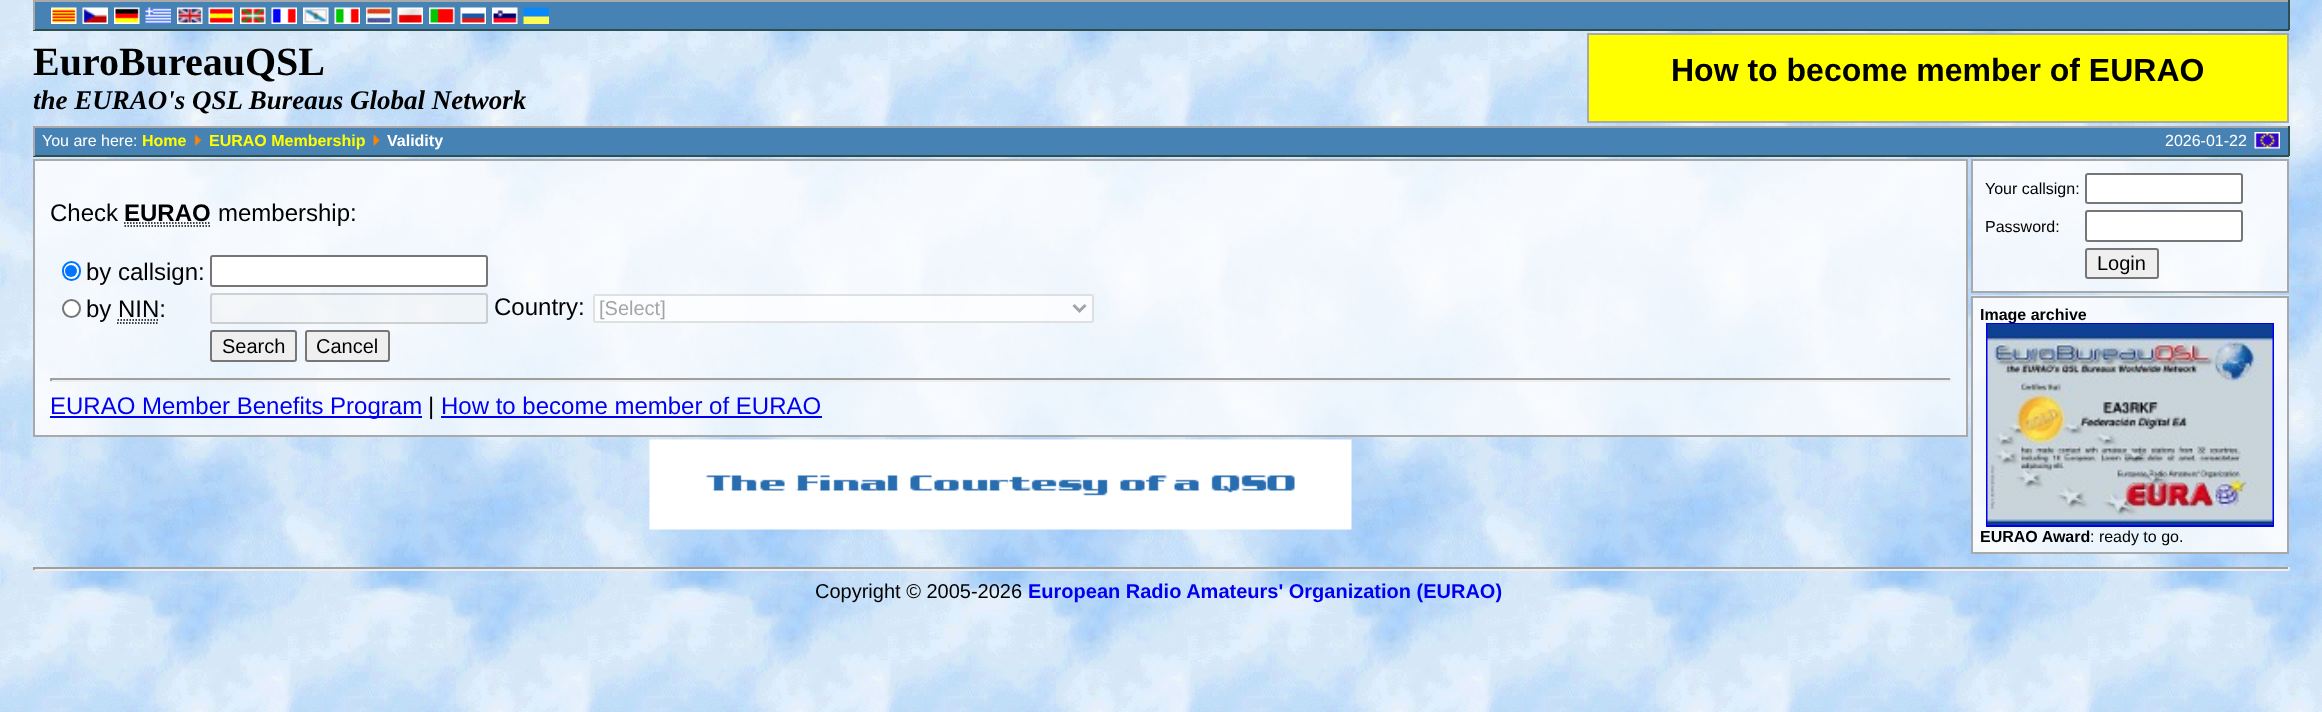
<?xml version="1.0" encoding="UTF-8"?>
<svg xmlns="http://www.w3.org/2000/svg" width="2322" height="712">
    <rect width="100%" height="100%" fill="#FFFFFF"/>
    <image x="0" y="0" width="2322" height="712" href="img_01.png"/>
    <rect x="35" y="2" width="2253" height="27" fill="#4682B4"/>
    <rect x="33" y="0" width="2256" height="2" fill="#A9A9A9"/>
    <rect x="2288" y="0" width="2" height="30" fill="#2F4F4F"/>
    <rect x="33" y="29" width="2256" height="2" fill="#2F4F4F"/>
    <rect x="33" y="0" width="2" height="30" fill="#A9A9A9"/>
    <image x="51" y="7" width="26" height="17" href="img_02.png"/>
    <image x="82" y="7" width="26" height="17" href="img_03.png"/>
    <image x="114" y="7" width="26" height="17" href="img_04.png"/>
    <image x="145" y="7" width="26" height="17" href="img_05.png"/>
    <image x="177" y="7" width="26" height="17" href="img_06.png"/>
    <image x="208" y="7" width="26" height="17" href="img_07.png"/>
    <image x="240" y="7" width="26" height="17" href="img_08.png"/>
    <image x="271" y="7" width="26" height="17" href="img_09.png"/>
    <image x="303" y="7" width="26" height="17" href="img_10.png"/>
    <image x="334" y="7" width="26" height="17" href="img_11.png"/>
    <image x="366" y="7" width="26" height="17" href="img_12.png"/>
    <image x="397" y="7" width="26" height="17" href="img_13.png"/>
    <image x="429" y="7" width="26" height="17" href="img_14.png"/>
    <image x="460" y="7" width="26" height="17" href="img_15.png"/>
    <image x="492" y="7" width="26" height="17" href="img_16.png"/>
    <image x="523" y="7" width="26" height="17" href="img_17.png"/>
    <text x="33" y="75" font-family="Liberation Serif" font-size="40" font-weight="700" fill="#000000">EuroBureauQSL</text>
    <text x="33" y="109" font-family="Liberation Serif" font-size="27" font-weight="700" font-style="italic" fill="#000000">the EURAO's QSL Bureaus Global Network</text>
    <rect x="1588" y="34" width="700" height="88" fill="#FFFF00" stroke="#A9A9A9" stroke-width="2"/>
    <text x="1671" y="81" font-family="Liberation Sans" font-size="32" font-weight="700" fill="#000000">How to become member of EURAO</text>
    <rect x="35" y="128" width="2253" height="27" fill="#4682B4"/>
    <rect x="33" y="126" width="2256" height="2" fill="#A9A9A9"/>
    <rect x="2288" y="126" width="2" height="30" fill="#2F4F4F"/>
    <rect x="33" y="155" width="2256" height="2" fill="#2F4F4F"/>
    <rect x="33" y="126" width="2" height="30" fill="#A9A9A9"/>
    <text x="42" y="146" font-family="Liberation Sans" font-size="16" fill="#FFFFFF">You are here:</text>
    <text x="142" y="146" font-family="Liberation Sans" font-size="16" font-weight="700" fill="#FFFF00">Home</text>
    <image x="194" y="134" width="8" height="12" href="img_18.png"/>
    <text x="209" y="146" font-family="Liberation Sans" font-size="16" font-weight="700" fill="#FFFF00">EURAO Membership</text>
    <image x="373" y="134" width="7" height="12" href="img_19.png"/>
    <text x="387" y="146" font-family="Liberation Sans" font-size="16" font-weight="700" fill="#FFFFFF">Validity</text>
    <text x="2165" y="146" font-family="Liberation Sans" font-size="16" fill="#FFFFFF">2026-01-22</text>
    <image x="2254" y="132" width="26" height="17" href="img_20.png"/>
    <image x="35" y="161" width="1931" height="274" href="img_21.png"/>
    <rect x="34" y="160" width="1933" height="276" fill="none" stroke="#A9A9A9" stroke-width="2"/>
    <text x="50" y="221" font-family="Liberation Sans" font-size="24" fill="#000000">Check</text>
    <text x="124" y="221" font-family="Liberation Sans" font-size="24" font-weight="700" fill="#000000">EURAO</text>
    <path d="M 124.5 226 H 211.5" fill="none" stroke="#000000" stroke-width="1.5" stroke-dasharray="1.5 1.5"/>
    <path d="M 124 223 H 211" fill="none" stroke="#000000" stroke-width="1.5" stroke-dasharray="1.5 1.5"/>
    <text x="218" y="221" font-family="Liberation Sans" font-size="24" fill="#000000">membership:</text>
    <rect x="63" y="262" width="17" height="18" rx="8.5" fill="#FFFFFF" stroke="#0075FF" stroke-width="2"/>
    <circle cx="71" cy="271" r="6" fill="#0075FF"/>
    <text x="86" y="280" font-family="Liberation Sans" font-size="24" fill="#000000">by callsign:</text>
    <rect x="211" y="256" width="276" height="30" rx="2" fill="#FFFFFF" stroke="#767676" stroke-width="2"/>
    <circle cx="71.5" cy="308.5" r="8.5" fill="#FFFFFF" stroke="#767676" stroke-width="2"/>
    <text x="86" y="317" font-family="Liberation Sans" font-size="24" fill="#000000">by NIN:</text>
    <path d="M 117 323 H 159 M 117.5 320 H 159" fill="none" stroke="#000000" stroke-width="1.5" stroke-dasharray="1.5 1.5"/>
    <rect x="210" y="293" width="278" height="31" rx="3" fill="#EFEFEF" fill-opacity="0.3"/>
    <rect x="211" y="294" width="276" height="29" rx="2" fill="none" stroke="#767676" stroke-opacity="0.3" stroke-width="2"/>
    <text x="494" y="315" font-family="Liberation Sans" font-size="24" fill="#000000">Country:</text>
    <rect x="593" y="294" width="501" height="29" rx="3" fill="#FFFFFF" fill-opacity="0.7"/>
    <rect x="594" y="295" width="499" height="27" rx="2" fill="none" stroke="#767676" stroke-opacity="0.21" stroke-width="2"/>
    <path d="M 1073.5 305 L 1079.5 311 L 1085.5 305" fill="none" stroke="#A1A3A6" stroke-width="3"/>
    <text x="599" y="315" font-family="Liberation Sans" font-size="20" fill="#A5A5A6">[Select]</text>
    <rect x="211" y="331" width="85" height="30" rx="2" fill="#EFEFEF" stroke="#767676" stroke-width="2"/>
    <text x="222" y="353" font-family="Liberation Sans" font-size="20" fill="#000000">Search</text>
    <rect x="306" y="331" width="83" height="30" rx="2" fill="#EFEFEF" stroke="#767676" stroke-width="2"/>
    <text x="316" y="353" font-family="Liberation Sans" font-size="20" fill="#000000">Cancel</text>
    <rect x="50" y="378" width="1902" height="2" fill="#9F9F9F"/>
    <rect x="1950" y="378" width="2" height="3" fill="#EEEEEE"/>
    <rect x="50" y="380" width="1902" height="2" fill="#EEEEEE"/>
    <rect x="50" y="378" width="2" height="3" fill="#9F9F9F"/>
    <rect x="50" y="416" width="372" height="2" fill="#0000EE"/>
    <text x="50" y="414" font-family="Liberation Sans" font-size="24" fill="#0000EE">EURAO Member Benefits Program</text>
    <text x="428" y="414" font-family="Liberation Sans" font-size="24" fill="#000000">|</text>
    <text x="441" y="414" font-family="Liberation Sans" font-size="24" fill="#0000EE">How to become member of EURAO</text>
    <rect x="441" y="416" width="381" height="2" fill="#0000EE"/>
    <image x="649" y="439" width="703" height="91" href="img_22.png"/>
    <image x="1973" y="161" width="314" height="130" href="img_23.png"/>
    <rect x="1972" y="160" width="316" height="132" fill="none" stroke="#A9A9A9" stroke-width="2"/>
    <text x="1985" y="194" font-family="Liberation Sans" font-size="16" fill="#000000">Your callsign:</text>
    <rect x="2086" y="174" width="156" height="29" rx="2" fill="#FFFFFF" stroke="#767676" stroke-width="2"/>
    <text x="1985" y="232" font-family="Liberation Sans" font-size="16" fill="#000000">Password:</text>
    <rect x="2086" y="211" width="156" height="30" rx="2" fill="#FFFFFF" stroke="#767676" stroke-width="2"/>
    <rect x="2086" y="249" width="72" height="29" rx="2" fill="#EFEFEF" stroke="#767676" stroke-width="2"/>
    <text x="2097" y="270" font-family="Liberation Sans" font-size="20" fill="#000000">Login</text>
    <image x="1971" y="295" width="318" height="257" href="img_24.png"/>
    <rect x="1972" y="297" width="316" height="256" fill="none" stroke="#A9A9A9" stroke-width="2"/>
    <text x="1980" y="320" font-family="Liberation Sans" font-size="16" font-weight="700" fill="#000000">Image archive</text>
    <rect x="1987" y="324" width="286" height="202" fill="none" stroke="#0000EE" stroke-width="2"/>
    <image x="1987" y="324" width="286" height="201" href="img_25.png"/>
    <text x="1980" y="542" font-family="Liberation Sans" font-size="16" font-weight="700" fill="#000000">EURAO Award</text>
    <text x="2090" y="542" font-family="Liberation Sans" font-size="16" fill="#000000">: ready to go.</text>
    <rect x="33" y="567" width="2256" height="2" fill="#9F9F9F"/>
    <rect x="2288" y="567" width="2" height="3" fill="#EEEEEE"/>
    <rect x="33" y="569" width="2256" height="2" fill="#EEEEEE"/>
    <rect x="33" y="567" width="2" height="3" fill="#9F9F9F"/>
    <text x="815" y="598" font-family="Liberation Sans" font-size="20" fill="#000000">Copyright © 2005-2026</text>
    <text x="1028" y="598" font-family="Liberation Sans" font-size="20" font-weight="700" fill="#0000EE">European Radio Amateurs' Organization (EURAO)</text>
</svg>
